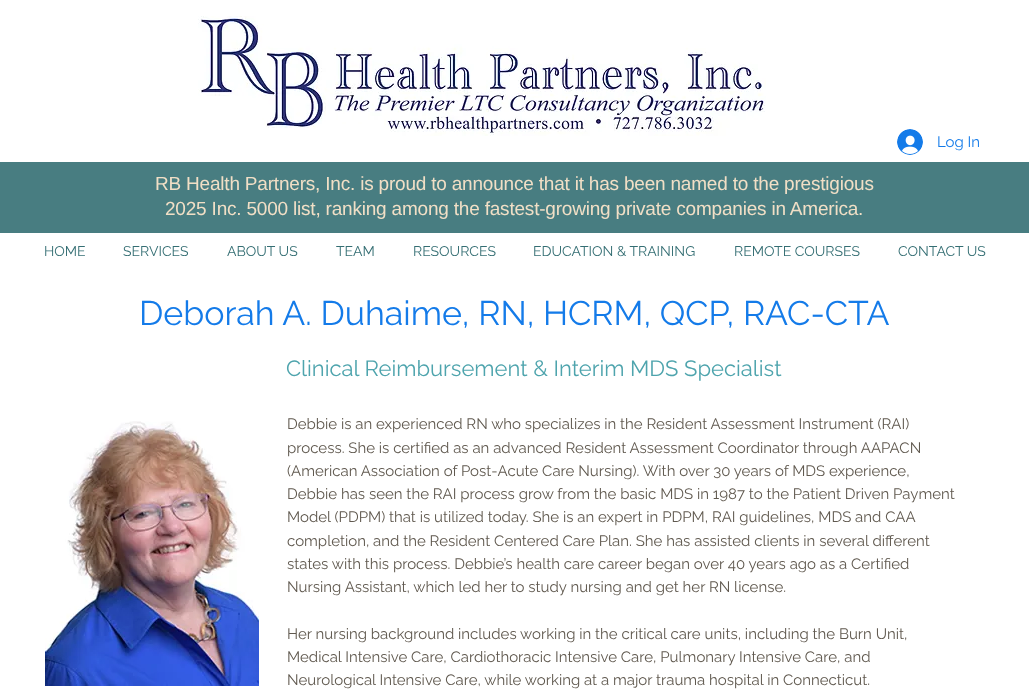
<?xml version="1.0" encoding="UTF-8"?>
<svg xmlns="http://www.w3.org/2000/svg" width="1029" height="698">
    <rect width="100%" height="100%" fill="#FFFFFF"/>
    <image x="198" y="16" width="568" height="120" href="img_01.png"/>
    <image x="897" y="129" width="26" height="26" href="img_02.png"/>
    <text x="937" y="147" font-family="Raleway" font-size="15" fill="#147BE9">Log In</text>
    <rect x="0" y="162" width="1029" height="71" fill="#487D81"/>
    <text x="155" y="190" font-family="Liberation Sans" font-size="19" letter-spacing="-0.2" fill="#F1DFC6">RB Health Partners, Inc. is proud to announce that it has been named to the prestigious</text>
    <text x="165" y="215" font-family="Liberation Sans" font-size="19" letter-spacing="-0.2" fill="#F1DFC6">2025 Inc. 5000 list, ranking among the fastest-growing private companies in America.</text>
    <text x="44" y="256" font-family="Raleway" font-size="14" fill="#346E73">HOME</text>
    <text x="123" y="256" font-family="Raleway" font-size="14" fill="#346E73">SERVICES</text>
    <text x="227" y="256" font-family="Raleway" font-size="14" fill="#346E73">ABOUT US</text>
    <text x="336" y="256" font-family="Raleway" font-size="14" fill="#346E73">TEAM</text>
    <text x="413" y="256" font-family="Raleway" font-size="14" fill="#346E73">RESOURCES</text>
    <text x="533" y="256" font-family="Raleway" font-size="14" fill="#346E73">EDUCATION &amp; TRAINING</text>
    <text x="734" y="256" font-family="Raleway" font-size="14" fill="#346E73">REMOTE COURSES</text>
    <text x="898" y="256" font-family="Raleway" font-size="14" fill="#346E73">CONTACT US</text>
    <text x="139" y="325" font-family="Raleway" font-size="34" fill="#147BE9">Deborah A. Duhaime, RN, HCRM, QCP, RAC-CTA</text>
    <text x="286" y="376" font-family="Raleway" font-size="22" fill="#4EA4AD">Clinical Reimbursement &amp; Interim MDS Specialist</text>
    <image x="45" y="421" width="214" height="265" href="img_03.png"/>
    <text font-family="Raleway" font-size="15" fill="#60594F">
        <tspan x="287" y="429">Debbie is an experienced RN who specializes in the Resident Assessment Instrument (RAI)</tspan>
        <tspan x="287" y="453">process. She is certified as an advanced Resident Assessment Coordinator through AAPACN</tspan>
        <tspan x="287" y="476">(American Association of Post-Acute Care Nursing). With over 30 years of MDS experience,</tspan>
        <tspan x="287" y="499">Debbie has seen the RAI process grow from the basic MDS in 1987 to the Patient Driven Payment</tspan>
        <tspan x="287" y="522">Model (PDPM) that is utilized today. She is an expert in PDPM, RAI guidelines, MDS and CAA</tspan>
        <tspan x="287" y="546">completion, and the Resident Centered Care Plan. She has assisted clients in several different</tspan>
        <tspan x="287" y="569">states with this process. Debbie’s health care career began over 40 years ago as a Certified</tspan>
        <tspan x="287" y="592">Nursing Assistant, which led her to study nursing and get her RN license.</tspan>
    </text>
    <text font-family="Raleway" font-size="15" fill="#60594F">
        <tspan x="287" y="639">Her nursing background includes working in the critical care units, including the Burn Unit,</tspan>
        <tspan x="287" y="662">Medical Intensive Care, Cardiothoracic Intensive Care, Pulmonary Intensive Care, and</tspan>
        <tspan x="287" y="685">Neurological Intensive Care, while working at a major trauma hospital in Connecticut.</tspan>
    </text>
</svg>
